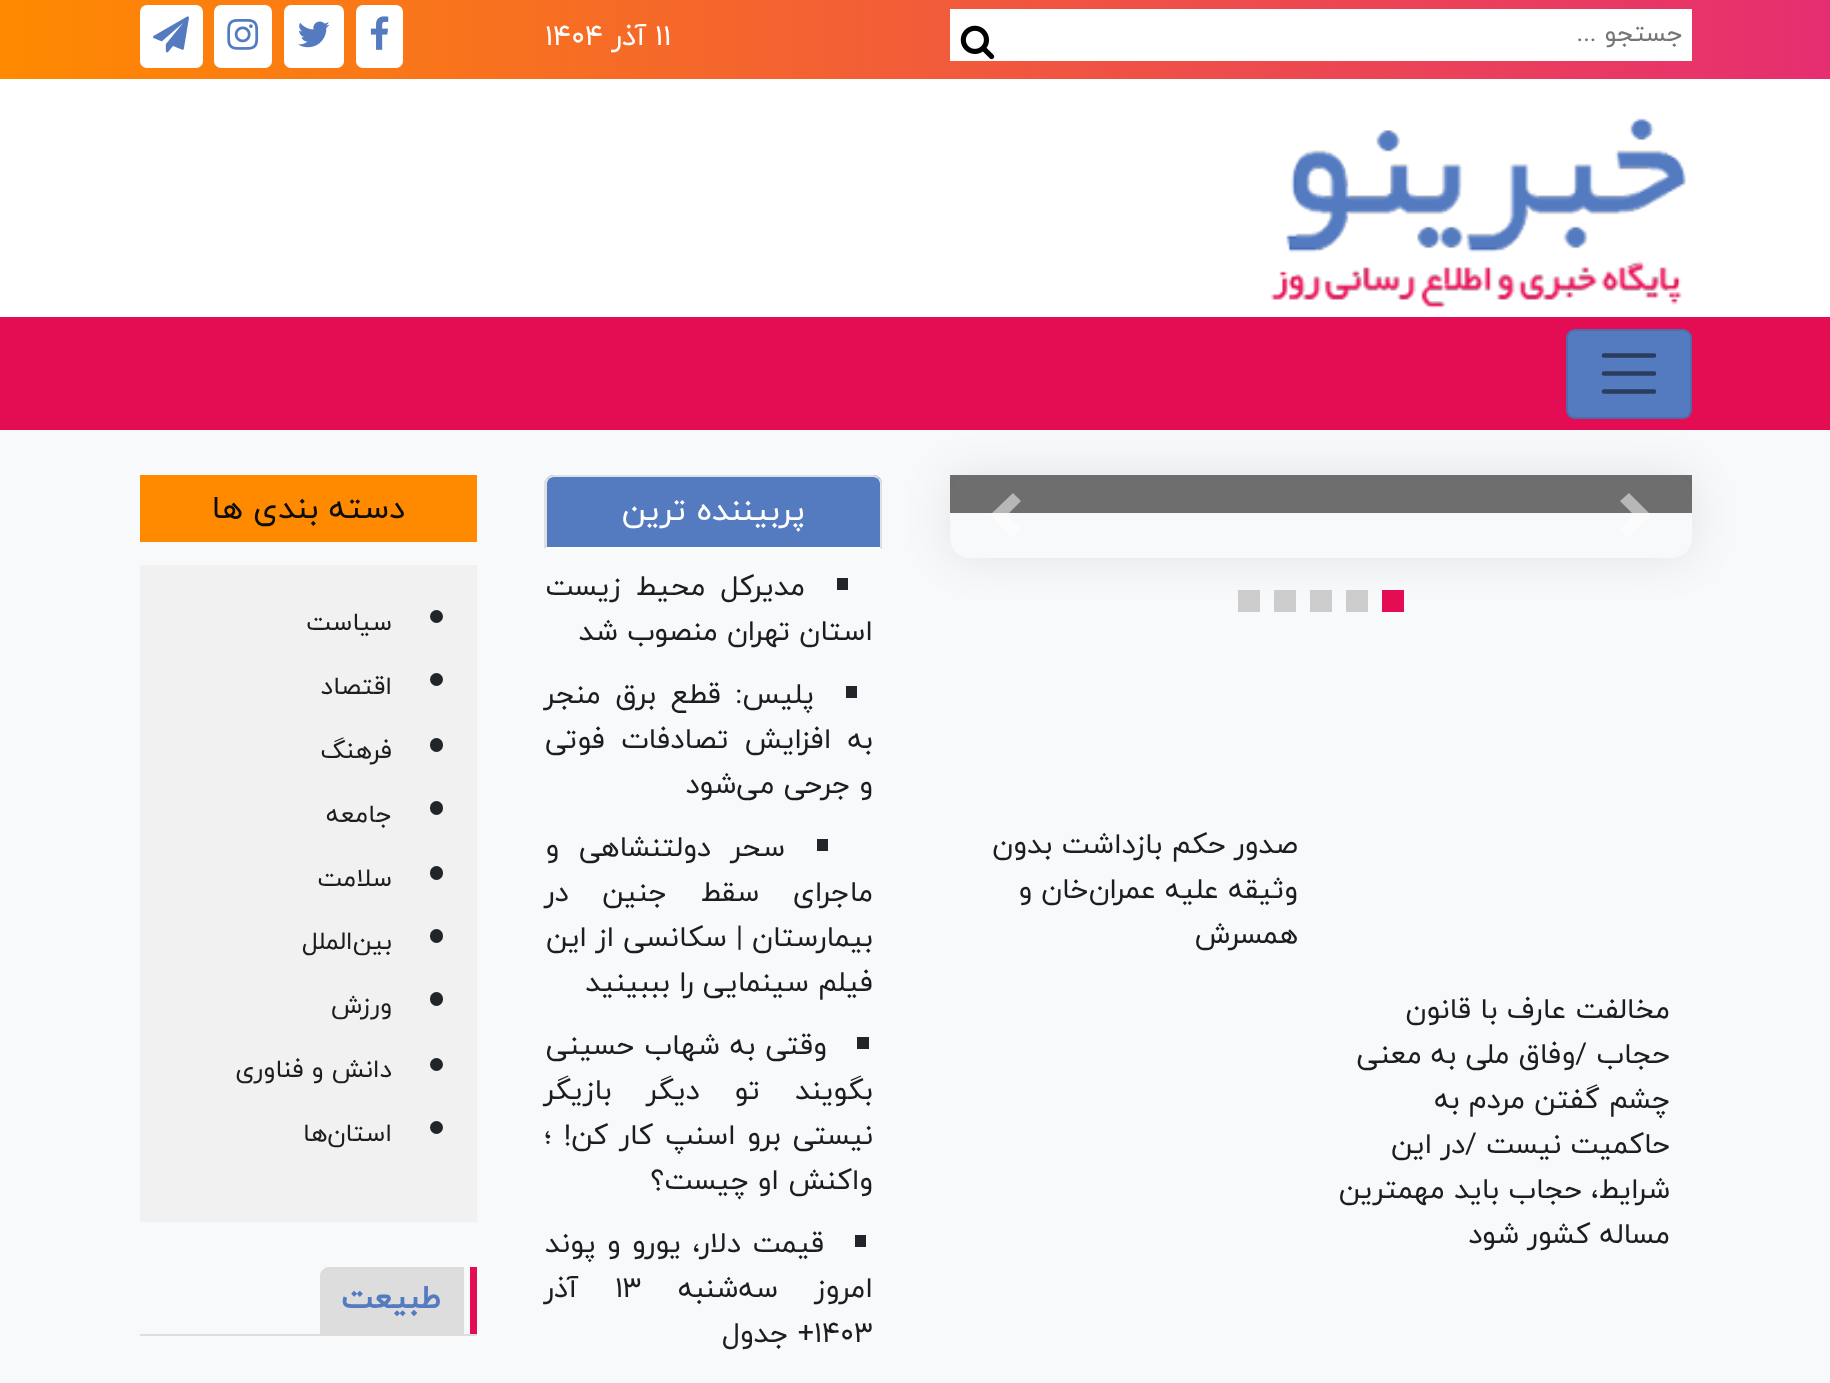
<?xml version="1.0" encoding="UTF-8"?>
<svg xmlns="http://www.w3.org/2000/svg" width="1830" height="1383">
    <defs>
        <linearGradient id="g1" gradientUnits="userSpaceOnUse" x1="0" y1="39" x2="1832" y2="39"><stop offset="0" stop-color="#FF8A00"/><stop offset="1" stop-color="#E52E71"/></linearGradient>
        <clipPath id="clip1"><path d="M 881 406 H 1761 V 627 H 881 Z M 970 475 H 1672 C 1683 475 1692 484 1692 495 V 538 C 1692 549 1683 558 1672 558 H 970 C 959 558 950 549 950 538 V 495 C 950 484 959 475 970 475 Z" clip-rule="evenodd"/></clipPath>
        <filter id="blur1" x="-50%" y="-200%" width="200%" height="500%"><feGaussianBlur stdDeviation="22.5"/></filter>
    </defs>
    <rect width="100%" height="100%" fill="#F8F9FA"/>
    <rect x="0" y="79" width="1830" height="238" fill="#FFFFFF"/>
    <rect x="0" y="0" width="1830" height="79" fill="url(#g1)"/>
    <rect x="950" y="9" width="742" height="52" fill="#FFFFFF"/>
    <text x="1683" y="41" font-family="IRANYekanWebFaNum" font-size="25.25" direction="rtl" fill="#757575">جستجو ...</text>
    <image x="960" y="25" width="35" height="35" href="img_01.png"/>
    <text x="655" y="45" font-family="IRANYekanWebFaNum" font-size="28.75" fill="#FFFFFF">11</text>
    <text x="646" y="45" font-family="IRANYekanWebFaNum" font-size="28.75" direction="rtl" fill="#FFFFFF">آذر</text>
    <text x="545" y="45" font-family="IRANYekanWebFaNum" font-size="28.75" fill="#FFFFFF">1404</text>
    <rect x="356" y="5" width="47" height="63" rx="7" fill="#FFFFFF"/>
    <image x="370" y="16" width="19" height="34" href="img_02.png"/>
    <rect x="284" y="5" width="60" height="63" rx="7" fill="#FFFFFF"/>
    <image x="298" y="21" width="32" height="27" href="img_03.png"/>
    <rect x="214" y="5" width="58" height="63" rx="7" fill="#FFFFFF"/>
    <image x="227" y="19" width="32" height="31" href="img_04.png"/>
    <rect x="140" y="5" width="63" height="63" rx="7" fill="#FFFFFF"/>
    <image x="153" y="16" width="36" height="37" href="img_05.png"/>
    <image x="1270" y="118" width="416" height="191" href="img_06.png"/>
    <g clip-path="url(#clip1)">
        <rect x="950" y="475" width="742" height="83" rx="20" fill="#000000" fill-opacity="0.09" filter="url(#blur1)"/>
    </g>
    <rect x="0" y="317" width="1830" height="113" fill="#E40D54"/>
    <rect x="1566" y="329" width="126" height="90" rx="9" fill="#547AC0"/>
    <rect x="1567" y="330" width="124" height="88" rx="8" fill="none" stroke="#000000" stroke-opacity="0.1" stroke-width="2"/>
    <path d="M 1604 355.5 H 1654 M 1604 373.5 H 1654 M 1604 391.5 H 1654" fill="none" stroke="#2A3D60" stroke-width="4.5" stroke-linecap="round"/>
    <rect x="950" y="475" width="742" height="38" fill="#333333" fill-opacity="0.7"/>
    <path d="M 1629 493 L 1620 501 L 1634 515 L 1620 529 L 1629 538 L 1651 515 Z" fill="#FFFFFF" fill-opacity="0.5"/>
    <path d="M 1013 493 L 990 515 L 1013 538 L 1021 529 L 1007 515 L 1021 501 Z" fill="#FFFFFF" fill-opacity="0.5"/>
    <rect x="1382" y="590" width="22" height="22" fill="#E40D54"/>
    <rect x="1346" y="590" width="22" height="22" fill="#CCCCCC"/>
    <rect x="1310" y="590" width="22" height="22" fill="#CCCCCC"/>
    <rect x="1274" y="590" width="22" height="22" fill="#CCCCCC"/>
    <rect x="1238" y="590" width="22" height="22" fill="#CCCCCC"/>
    <text font-family="IRANYekanWebFaNum" font-size="28.75" direction="rtl" fill="#1B1E21">
        <tspan x="1298" y="853">صدور حکم بازداشت بدون</tspan>
        <tspan x="1298" y="898">وثیقه علیه عمران‌خان و</tspan>
        <tspan x="1298" y="943">همسرش</tspan>
    </text>
    <text font-family="IRANYekanWebFaNum" font-size="28.75" direction="rtl" fill="#1B1E21">
        <tspan x="1670" y="1018">مخالفت عارف با قانون</tspan>
        <tspan x="1670" y="1063">حجاب /وفاق ملی به معنی</tspan>
        <tspan x="1670" y="1108">چشم گفتن مردم به</tspan>
        <tspan x="1670" y="1153">حاکمیت نیست /در این</tspan>
        <tspan x="1670" y="1198">شرایط، حجاب باید مهمترین</tspan>
        <tspan x="1670" y="1243">مساله کشور شود</tspan>
    </text>
    <path d="M 554 475 H 873 C 878 475 882 479 882 484 V 549 H 545 V 484 C 545 479 549 475 554 475 Z" fill="#547AC0"/>
    <path d="M 554 475 C 552 475 549 476 547 478 L 549 479 C 550 478 552 477 554 477 H 873 C 875 477 877 478 878 479 L 879 478 C 878 476 875 475 873 475 Z" fill="#DEE2E6"/>
    <path d="M 879 478 C 881 479 882 481 882 484 V 549 L 880 547 V 484 C 880 482 879 480 878 479 Z" fill="#DEE2E6"/>
    <path d="M 882 549 L 880 547 H 547 V 546 L 544 549 Z" fill="#FFFFFF"/>
    <path d="M 544 549 L 547 546 V 484 C 547 482 548 480 549 479 L 547 478 L 544 481 Z" fill="#DEE2E6"/>
    <text x="805" y="520" font-family="IRANYekanWebFaNum" font-size="32.5" direction="rtl" fill="#FFFFFF">پربیننده ترین</text>
    <rect x="837" y="578" width="11" height="12" fill="#212529"/>
    <text x="805" y="595" word-spacing="6" font-family="IRANYekanWebFaNum" font-size="28.75" direction="rtl" fill="#1B1E21">مدیرکل محیط زیست</text>
    <text x="873" y="640" font-family="IRANYekanWebFaNum" font-size="28.75" direction="rtl" fill="#1B1E21">استان تهران منصوب شد</text>
    <rect x="846" y="686" width="11" height="12" fill="#212529"/>
    <text x="814" y="703" word-spacing="5.5" font-family="IRANYekanWebFaNum" font-size="28.75" direction="rtl" fill="#1B1E21">پلیس: قطع برق منجر</text>
    <text font-family="IRANYekanWebFaNum" font-size="28.75" direction="rtl" fill="#1B1E21">
        <tspan x="873" y="748" word-spacing="7">به افزایش تصادفات فوتی</tspan>
        <tspan x="873" y="793">و جرحی می‌شود</tspan>
    </text>
    <rect x="817" y="839" width="11" height="12" fill="#212529"/>
    <text x="785" y="856" word-spacing="11" font-family="IRANYekanWebFaNum" font-size="28.75" direction="rtl" fill="#1B1E21">سحر دولتنشاهی و</text>
    <text font-family="IRANYekanWebFaNum" font-size="28.75" direction="rtl" fill="#1B1E21">
        <tspan x="873" y="901" word-spacing="24.5">ماجرای سقط جنین در</tspan>
        <tspan x="873" y="946">بیمارستان | سکانسی از این</tspan>
        <tspan x="873" y="991">فیلم سینمایی را بببینید</tspan>
    </text>
    <rect x="857" y="1037" width="12" height="12" fill="#212529"/>
    <text x="827" y="1054" word-spacing="1" font-family="IRANYekanWebFaNum" font-size="28.75" direction="rtl" fill="#1B1E21">وقتی به شهاب حسینی</text>
    <text font-family="IRANYekanWebFaNum" font-size="28.75" direction="rtl" fill="#1B1E21">
        <tspan x="873" y="1099" word-spacing="26">بگویند تو دیگر بازیگر</tspan>
        <tspan x="873" y="1144" word-spacing="2.75">نیستی برو اسنپ کار کن! ؛</tspan>
        <tspan x="873" y="1189">واکنش او چیست؟</tspan>
    </text>
    <rect x="855" y="1235" width="11" height="12" fill="#212529"/>
    <text x="824" y="1252" word-spacing="2.5" font-family="IRANYekanWebFaNum" font-size="28.75" direction="rtl" fill="#1B1E21">قیمت دلار، یورو و پوند</text>
    <text x="873" y="1297" font-family="IRANYekanWebFaNum" font-size="28.75" direction="rtl" fill="#1B1E21">امروز</text>
    <text x="778" y="1297" font-family="IRANYekanWebFaNum" font-size="28.75" direction="rtl" fill="#1B1E21">سه‌شنبه</text>
    <text x="615" y="1297" font-family="IRANYekanWebFaNum" font-size="28.75" fill="#1B1E21">۱۳</text>
    <text x="578" y="1297" font-family="IRANYekanWebFaNum" font-size="28.75" direction="rtl" fill="#1B1E21">آذر</text>
    <text x="814" y="1342" font-family="IRANYekanWebFaNum" font-size="28.75" fill="#1B1E21">1403</text>
    <text x="814" y="1342" font-family="IRANYekanWebFaNum" font-size="28.75" direction="rtl" fill="#1B1E21">+ جدول</text>
    <rect x="140" y="475" width="337" height="67" fill="#FF8A00"/>
    <text x="405" y="518" font-family="IRANYekanWebFaNum" font-size="32.5" direction="rtl" fill="#0D0D0D">دسته بندی ها</text>
    <rect x="140" y="565" width="337" height="657" fill="#F1F1F1"/>
    <circle cx="436.5" cy="616.5" r="6.5" fill="#212529"/>
    <text x="392" y="630" font-family="IRANYekanWebFaNum" font-size="25.25" direction="rtl" fill="#1B1E21">سیاست</text>
    <circle cx="436.5" cy="679.5" r="6.5" fill="#212529"/>
    <text x="392" y="694" font-family="IRANYekanWebFaNum" font-size="25.25" direction="rtl" fill="#1B1E21">اقتصاد</text>
    <rect x="430" y="738" width="13" height="14" rx="6.5" fill="#212529"/>
    <text x="392" y="758" font-family="IRANYekanWebFaNum" font-size="25.25" direction="rtl" fill="#1B1E21">فرهنگ</text>
    <rect x="430" y="801" width="13" height="14" rx="6.5" fill="#212529"/>
    <text x="392" y="822" font-family="IRANYekanWebFaNum" font-size="25.25" direction="rtl" fill="#1B1E21">جامعه</text>
    <rect x="430" y="866" width="13" height="14" rx="6.5" fill="#212529"/>
    <text x="392" y="886" font-family="IRANYekanWebFaNum" font-size="25.25" direction="rtl" fill="#1B1E21">سلامت</text>
    <rect x="430" y="929" width="13" height="14" rx="6.5" fill="#212529"/>
    <text x="392" y="949" font-family="IRANYekanWebFaNum" font-size="25.25" direction="rtl" fill="#1B1E21">بین‌الملل</text>
    <rect x="430" y="992" width="13" height="14" rx="6.5" fill="#212529"/>
    <text x="392" y="1013" font-family="IRANYekanWebFaNum" font-size="25.25" direction="rtl" fill="#1B1E21">ورزش</text>
    <circle cx="436.5" cy="1064.5" r="6.5" fill="#212529"/>
    <text x="392" y="1077" font-family="IRANYekanWebFaNum" font-size="25.25" direction="rtl" fill="#1B1E21">دانش و فناوری</text>
    <circle cx="436.5" cy="1127.5" r="6.5" fill="#212529"/>
    <text x="392" y="1141" font-family="IRANYekanWebFaNum" font-size="25.25" direction="rtl" fill="#1B1E21">استان‌ها</text>
    <rect x="140" y="1334" width="337" height="2" fill="#DDDDDD"/>
    <path d="M 329 1267 H 464 V 1334 H 320 V 1276 C 320 1271 324 1267 329 1267 Z" fill="#DDDDDD"/>
    <rect x="470" y="1267" width="7" height="67" fill="#E40D54"/>
    <text x="441" y="1308" font-family="IRANYekanWebFaNum" font-size="32.5" font-weight="700" direction="rtl" fill="#547AC0">طبیعت</text>
</svg>
